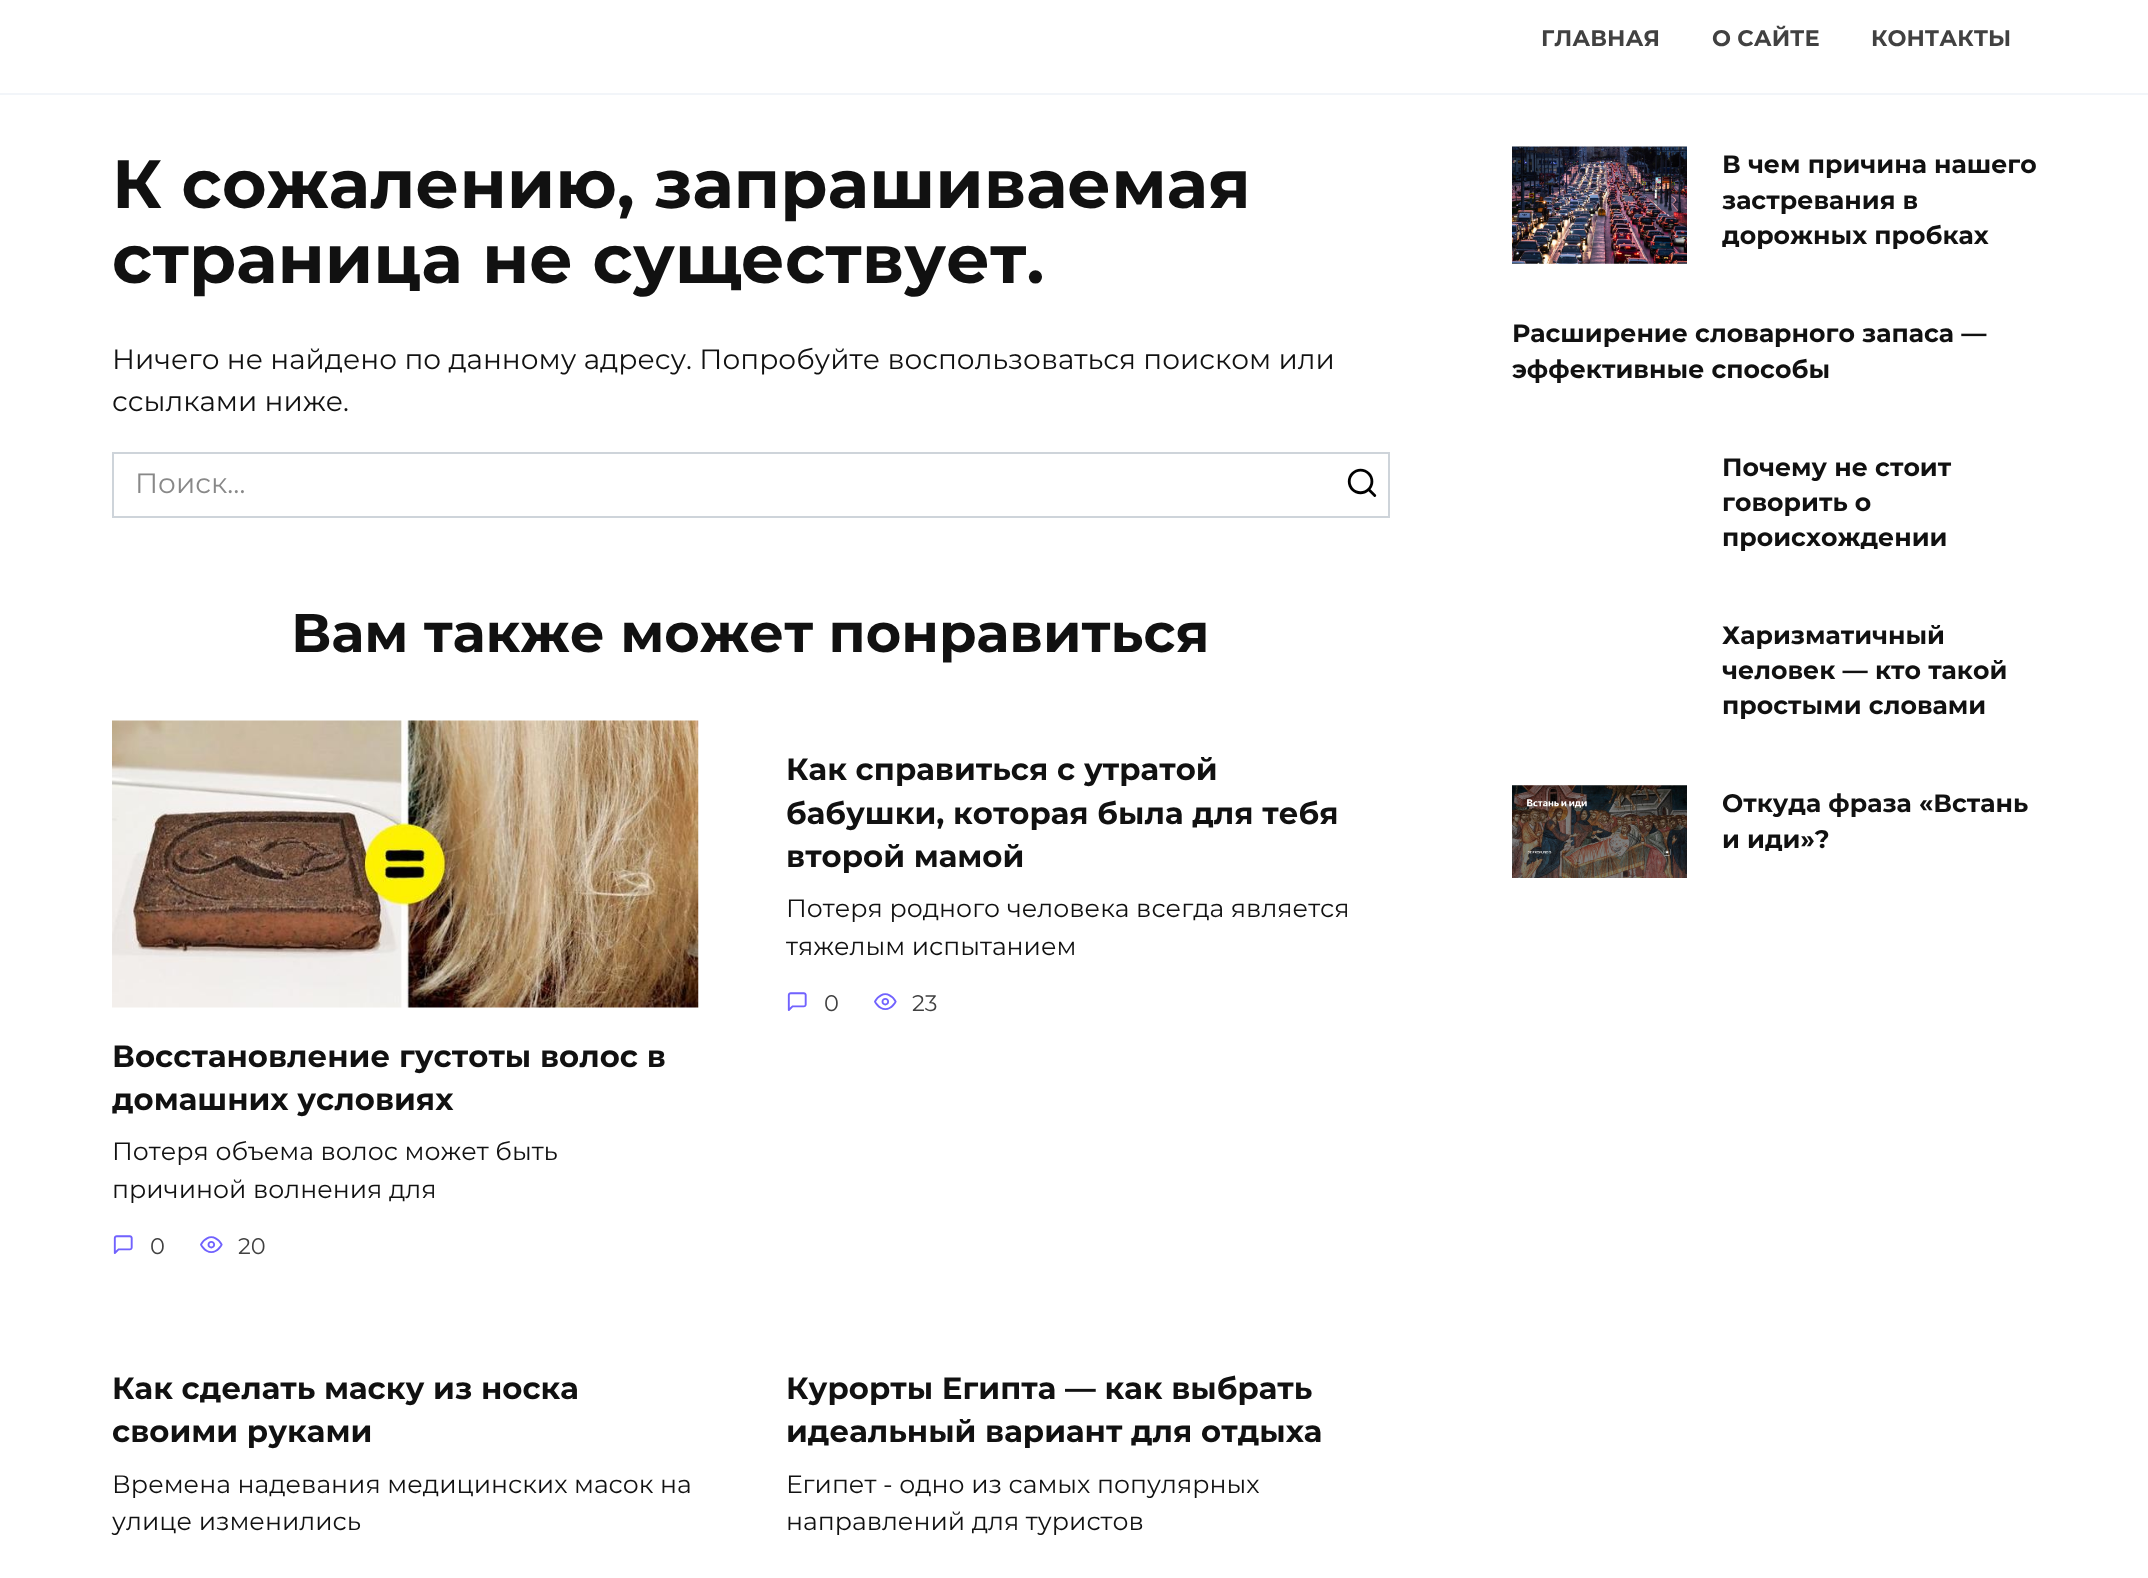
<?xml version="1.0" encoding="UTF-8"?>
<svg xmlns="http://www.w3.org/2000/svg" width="2148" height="1578">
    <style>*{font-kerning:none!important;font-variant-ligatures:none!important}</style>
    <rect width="100%" height="100%" fill="#FFFFFF"/>
    <rect x="0" y="93" width="2148" height="2" fill="#F2F5F9"/>
    <text x="1541" y="46" font-family="Montserrat" font-size="22.5" font-weight="700" fill="#414141">ГЛАВНАЯ</text>
    <text x="1712" y="46" font-family="Montserrat" font-size="22.5" font-weight="700" fill="#414141">О САЙТЕ</text>
    <text x="1871" y="46" font-family="Montserrat" font-size="22.5" font-weight="700" fill="#414141">КОНТАКТЫ</text>
    <text font-family="Montserrat" font-size="68.25" font-weight="700" fill="#111111">
        <tspan x="112" y="208">К сожалению, запрашиваемая</tspan>
        <tspan x="112" y="283">страница не существует.</tspan>
    </text>
    <text font-family="Montserrat" font-size="28" fill="#111111">
        <tspan x="112" y="369">Ничего не найдено по данному адресу. Попробуйте воспользоваться поиском или</tspan>
        <tspan x="112" y="411">ссылками ниже.</tspan>
    </text>
    <rect x="113" y="453" width="1276" height="64" fill="none" stroke="#CED4DA" stroke-width="2"/>
    <text x="135" y="493" font-family="Montserrat" font-size="28" fill="#888888">Поиск…</text>
    <text x="1345" y="497" font-family="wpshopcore" font-size="34" fill="#000000">🔍</text>
    <text x="291" y="652" font-family="Montserrat" font-size="54.25" font-weight="700" fill="#111111">Вам также может понравиться</text>
    <text font-family="Montserrat" font-size="30.75" font-weight="700" fill="#111111">
        <tspan x="786" y="780">Как справиться с утратой</tspan>
        <tspan x="786" y="824">бабушки, которая была для тебя</tspan>
        <tspan x="786" y="867">второй мамой</tspan>
    </text>
    <text font-family="Montserrat" font-size="25.2" fill="#111111">
        <tspan x="786" y="917">Потеря родного человека всегда является</tspan>
        <tspan x="786" y="955">тяжелым испытанием</tspan>
    </text>
    <text x="786" y="1011" font-family="wpshopcore" font-size="22.5" fill="#7162FE">💬</text>
    <text x="824" y="1011" font-family="Montserrat" font-size="22.5" fill="#414141">0</text>
    <text x="874" y="1011" font-family="wpshopcore" font-size="22.5" fill="#7162FE">👀</text>
    <text x="912" y="1011" font-family="Montserrat" font-size="22.5" fill="#414141">23</text>
    <image x="112" y="720" width="587" height="288" href="img_01.png"/>
    <text font-family="Montserrat" font-size="30.75" font-weight="700" fill="#111111">
        <tspan x="112" y="1067">Восстановление густоты волос в</tspan>
        <tspan x="112" y="1110">домашних условиях</tspan>
    </text>
    <text font-family="Montserrat" font-size="25.2" fill="#111111">
        <tspan x="112" y="1160">Потеря объема волос может быть</tspan>
        <tspan x="112" y="1198">причиной волнения для</tspan>
    </text>
    <text x="112" y="1254" font-family="wpshopcore" font-size="22.5" fill="#7162FE">💬</text>
    <text x="150" y="1254" font-family="Montserrat" font-size="22.5" fill="#414141">0</text>
    <text x="200" y="1254" font-family="wpshopcore" font-size="22.5" fill="#7162FE">👀</text>
    <text x="238" y="1254" font-family="Montserrat" font-size="22.5" fill="#414141">20</text>
    <text font-family="Montserrat" font-size="30.75" font-weight="700" fill="#111111">
        <tspan x="112" y="1399">Как сделать маску из носка</tspan>
        <tspan x="112" y="1442">своими руками</tspan>
    </text>
    <text font-family="Montserrat" font-size="25.2" fill="#111111">
        <tspan x="112" y="1493">Времена надевания медицинских масок на</tspan>
        <tspan x="112" y="1530">улице изменились</tspan>
    </text>
    <text font-family="Montserrat" font-size="30.75" font-weight="700" fill="#111111">
        <tspan x="786" y="1399">Курорты Египта — как выбрать</tspan>
        <tspan x="786" y="1442">идеальный вариант для отдыха</tspan>
    </text>
    <text font-family="Montserrat" font-size="25.2" fill="#111111">
        <tspan x="786" y="1493">Египет - одно из самых популярных</tspan>
        <tspan x="786" y="1530">направлений для туристов</tspan>
    </text>
    <image x="1512" y="146" width="175" height="118" href="img_02.png"/>
    <text font-family="Montserrat" font-size="25.2" font-weight="700" fill="#111111">
        <tspan x="1722" y="173">В чем причина нашего</tspan>
        <tspan x="1722" y="209">застревания в</tspan>
        <tspan x="1722" y="244">дорожных пробках</tspan>
    </text>
    <text font-family="Montserrat" font-size="25.2" font-weight="700" fill="#111111">
        <tspan x="1512" y="342">Расширение словарного запаса —</tspan>
        <tspan x="1512" y="378">эффективные способы</tspan>
    </text>
    <text font-family="Montserrat" font-size="25.2" font-weight="700" fill="#111111">
        <tspan x="1722" y="476">Почему не стоит</tspan>
        <tspan x="1722" y="511">говорить о</tspan>
        <tspan x="1722" y="546">происхождении</tspan>
    </text>
    <text font-family="Montserrat" font-size="25.2" font-weight="700" fill="#111111">
        <tspan x="1722" y="644">Харизматичный</tspan>
        <tspan x="1722" y="679">человек — кто такой</tspan>
        <tspan x="1722" y="714">простыми словами</tspan>
    </text>
    <image x="1512" y="785" width="175" height="93" href="img_03.png"/>
    <text font-family="Montserrat" font-size="25.2" font-weight="700" fill="#111111">
        <tspan x="1722" y="812">Откуда фраза «Встань</tspan>
        <tspan x="1722" y="848">и иди»?</tspan>
    </text>
</svg>
